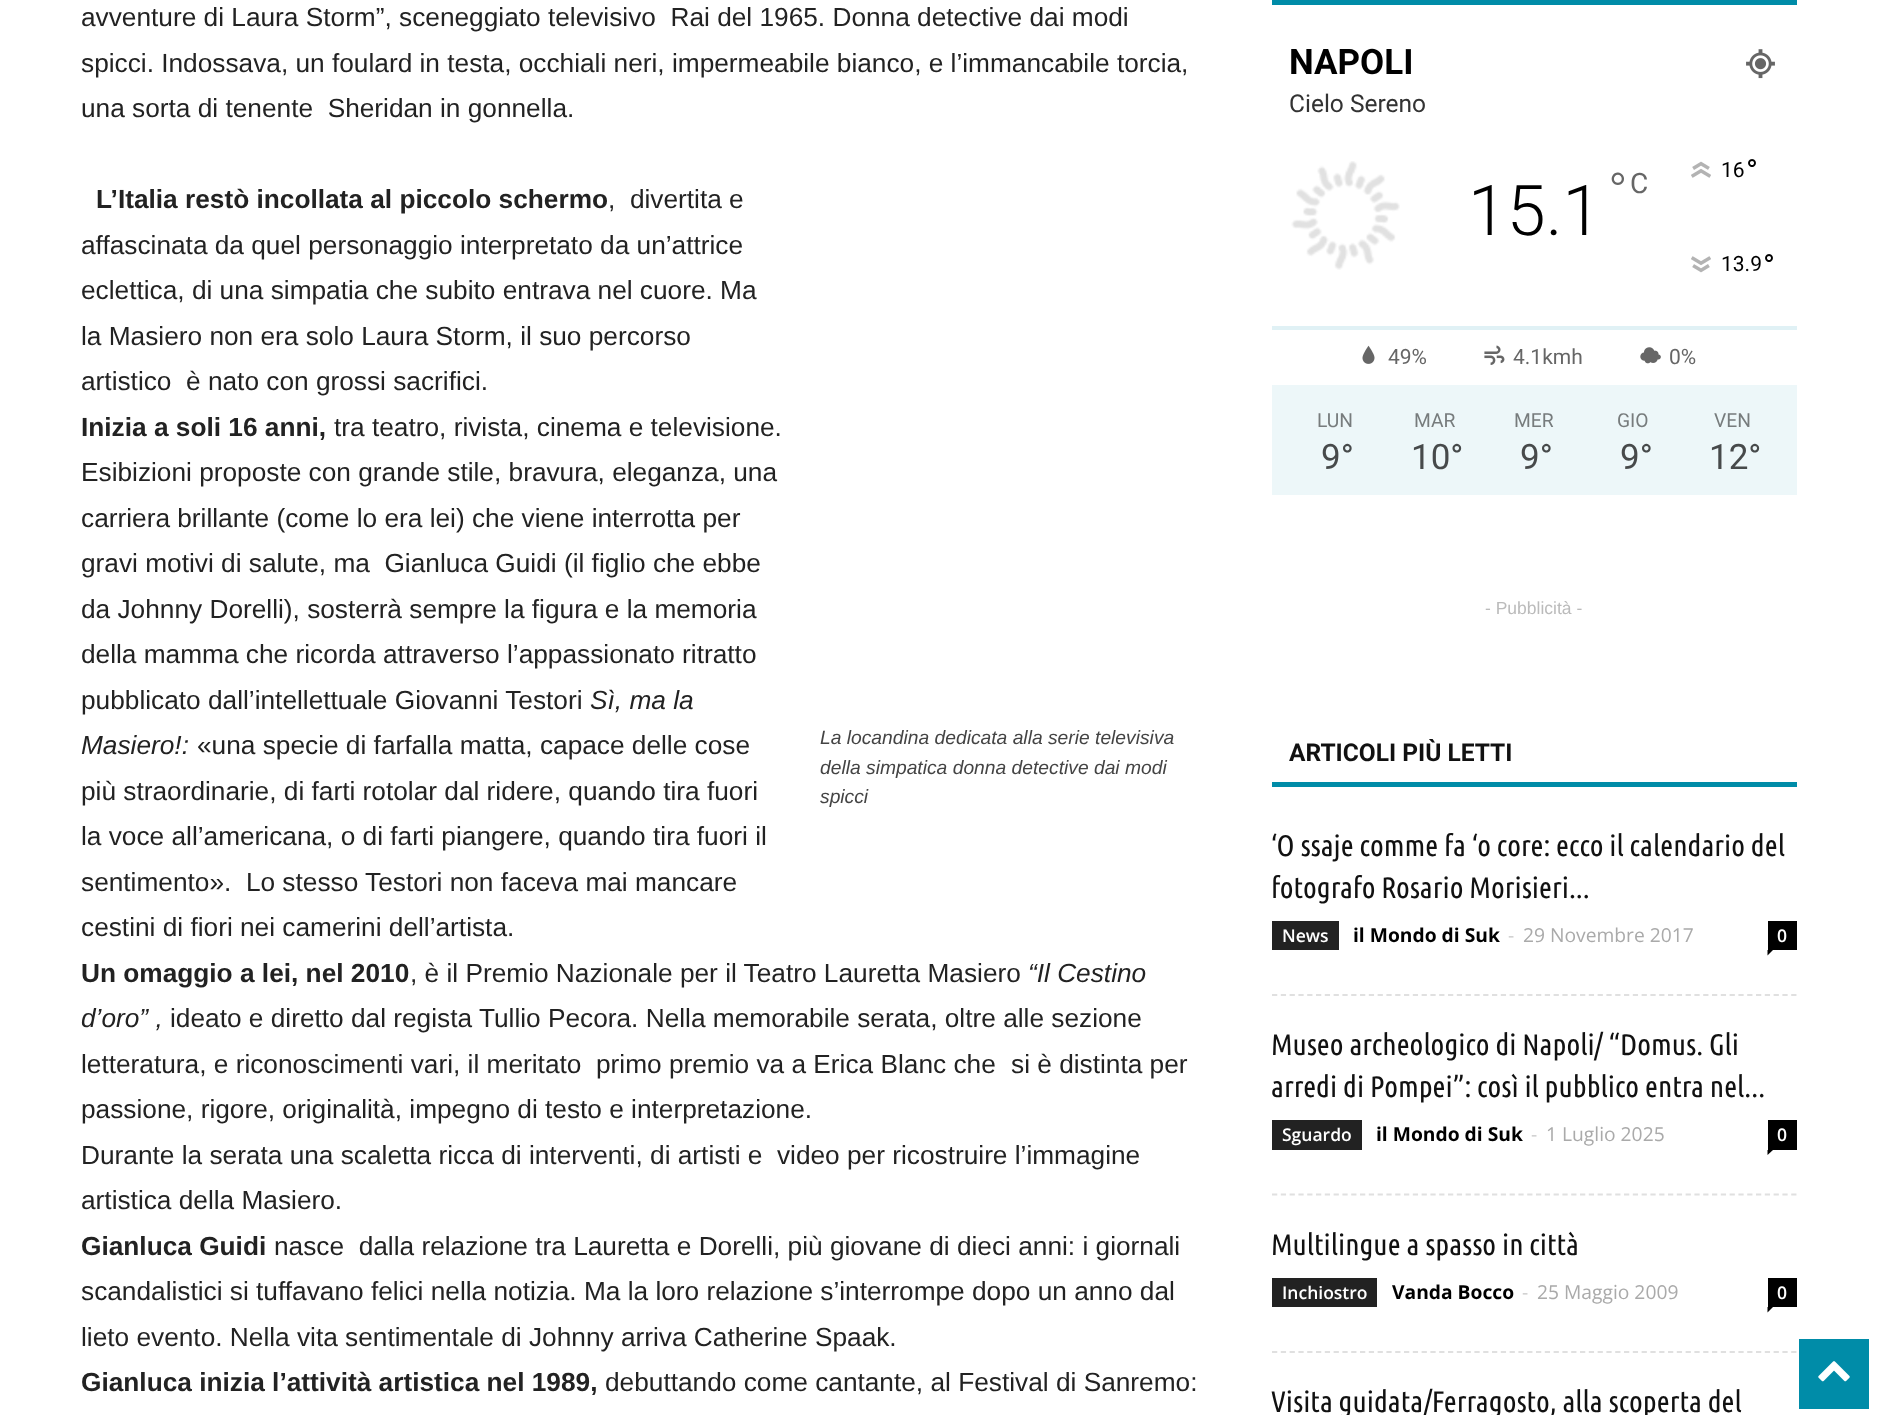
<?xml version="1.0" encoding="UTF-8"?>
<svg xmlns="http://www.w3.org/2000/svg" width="1877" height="1415">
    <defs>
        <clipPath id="clip1"><rect x="1272" y="739" width="525" height="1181"/></clipPath>
    </defs>
    <rect width="100%" height="100%" fill="#FFFFFF"/>
    <text font-family="Liberation Sans" font-size="26.25" fill="#222222" xml:space="preserve"><tspan x="81" y="26">avventure di Laura Storm”, sceneggiato televisivo  Rai del 1965. Donna detective dai modi</tspan><tspan x="81" y="72">spicci. Indossava, un foulard in testa, occhiali neri, impermeabile bianco, e l’immancabile torcia,</tspan><tspan x="81" y="117">una sorta di tenente  Sheridan in gonnella.</tspan></text>
    <text x="96" y="208" font-family="Liberation Sans" font-size="26.25" font-weight="700" fill="#222222">L’Italia restò incollata al piccolo schermo</text>
    <text x="608" y="208" font-family="Liberation Sans" font-size="26.25" fill="#222222" xml:space="preserve">,  divertita e</text>
    <text font-family="Liberation Sans" font-size="26.25" fill="#222222" xml:space="preserve"><tspan x="81" y="254">affascinata da quel personaggio interpretato da un’attrice</tspan><tspan x="81" y="299">eclettica, di una simpatia che subito entrava nel cuore. Ma</tspan><tspan x="81" y="345">la Masiero non era solo Laura Storm, il suo percorso</tspan><tspan x="81" y="390">artistico  è nato con grossi sacrifici.</tspan></text>
    <text x="81" y="436" font-family="Liberation Sans" font-size="26.25" font-weight="700" fill="#222222">Inizia a soli 16 anni,</text>
    <text x="334" y="436" font-family="Liberation Sans" font-size="26.25" fill="#222222">tra teatro, rivista, cinema e televisione.</text>
    <text font-family="Liberation Sans" font-size="26.25" fill="#222222" xml:space="preserve"><tspan x="81" y="481">Esibizioni proposte con grande stile, bravura, eleganza, una</tspan><tspan x="81" y="527">carriera brillante (come lo era lei) che viene interrotta per</tspan><tspan x="81" y="572">gravi motivi di salute, ma  Gianluca Guidi (il figlio che ebbe</tspan><tspan x="81" y="618">da Johnny Dorelli), sosterrà sempre la figura e la memoria</tspan><tspan x="81" y="663">della mamma che ricorda attraverso l’appassionato ritratto</tspan><tspan x="81" y="709">pubblicato dall’intellettuale Giovanni Testori</tspan></text>
    <text x="590" y="709" font-family="Liberation Sans" font-size="26.25" font-style="italic" fill="#222222">Sì, ma la</text>
    <text x="81" y="754" font-family="Liberation Sans" font-size="26.25" font-style="italic" fill="#222222">Masiero!:</text>
    <text x="197" y="754" font-family="Liberation Sans" font-size="26.25" fill="#222222">«una specie di farfalla matta, capace delle cose</text>
    <text font-family="Liberation Sans" font-size="26.25" fill="#222222" xml:space="preserve"><tspan x="81" y="800">più straordinarie, di farti rotolar dal ridere, quando tira fuori</tspan><tspan x="81" y="845">la voce all’americana, o di farti piangere, quando tira fuori il</tspan><tspan x="81" y="891">sentimento».  Lo stesso Testori non faceva mai mancare</tspan><tspan x="81" y="936">cestini di fiori nei camerini dell’artista.</tspan></text>
    <text x="81" y="982" font-family="Liberation Sans" font-size="26.25" font-weight="700" fill="#222222">Un omaggio a lei, nel 2010</text>
    <text x="410" y="982" font-family="Liberation Sans" font-size="26.25" fill="#222222">, è il Premio Nazionale per il Teatro Lauretta Masiero</text>
    <text x="1028" y="982" font-family="Liberation Sans" font-size="26.25" font-style="italic" fill="#222222">“Il Cestino</text>
    <text x="81" y="1027" font-family="Liberation Sans" font-size="26.25" font-style="italic" fill="#222222">d’oro” ,</text>
    <text x="170" y="1027" font-family="Liberation Sans" font-size="26.25" fill="#222222">ideato e diretto dal regista Tullio Pecora. Nella memorabile serata, oltre alle sezione</text>
    <text x="81" y="1073" font-family="Liberation Sans" font-size="26.25" fill="#222222" xml:space="preserve">letteratura, e riconoscimenti vari, il meritato  primo premio va a Erica Blanc che</text>
    <text x="1011" y="1073" font-family="Liberation Sans" font-size="26.25" fill="#222222">si è distinta per</text>
    <text font-family="Liberation Sans" font-size="26.25" fill="#222222" xml:space="preserve"><tspan x="81" y="1118">passione, rigore, originalità, impegno di testo e interpretazione.</tspan><tspan x="81" y="1164">Durante la serata una scaletta ricca di interventi, di artisti e  video per ricostruire l’immagine</tspan><tspan x="81" y="1209">artistica della Masiero.</tspan></text>
    <text x="81" y="1255" font-family="Liberation Sans" font-size="26.25" font-weight="700" fill="#222222">Gianluca Guidi</text>
    <text x="274" y="1255" font-family="Liberation Sans" font-size="26.25" fill="#222222" xml:space="preserve">nasce  dalla relazione tra Lauretta e Dorelli, più giovane di dieci anni: i giornali</text>
    <text font-family="Liberation Sans" font-size="26.25" fill="#222222">
        <tspan x="81" y="1300">scandalistici si tuffavano felici nella notizia. Ma la loro relazione s’interrompe dopo un anno dal</tspan>
        <tspan x="81" y="1346">lieto evento. Nella vita sentimentale di Johnny arriva Catherine Spaak.</tspan>
    </text>
    <text x="81" y="1391" font-family="Liberation Sans" font-size="26.25" font-weight="700" fill="#222222">Gianluca inizia l’attività artistica nel 1989,</text>
    <text x="605" y="1391" font-family="Liberation Sans" font-size="26.25" fill="#222222">debuttando come cantante, al Festival di Sanremo:</text>
    <text font-family="Liberation Sans" font-size="19.25" font-style="italic" fill="#444444">
        <tspan x="820" y="744">La locandina dedicata alla serie televisiva</tspan>
        <tspan x="820" y="774">della simpatica donna detective dai modi</tspan>
        <tspan x="820" y="803">spicci</tspan>
    </text>
    <rect x="1272" y="0" width="525" height="5" fill="#008CA8"/>
    <text x="1289" y="74" font-family="Roboto" font-size="35" font-weight="700" fill="#000000">NAPOLI</text>
    <image x="1746" y="49" width="29" height="30" href="img_01.png"/>
    <text x="1289" y="112" font-family="Roboto" font-size="24.5" fill="#333333">Cielo Sereno</text>
    <image x="1291" y="161" width="109" height="109" href="img_02.png"/>
    <text x="1468" y="235" font-family="Roboto" font-size="70" font-weight="300" fill="#000000">15.1</text>
    <text x="1608" y="210" font-family="Roboto" font-size="52" font-weight="300" fill="#666666">°</text>
    <text x="1630" y="193" font-family="Roboto" font-size="28" fill="#666666">C</text>
    <image x="1691" y="161" width="20" height="17" href="img_03.png"/>
    <text x="1721" y="177" font-family="Roboto" font-size="21" fill="#000000">16</text>
    <text x="1746" y="182" font-family="Roboto" font-size="32" fill="#000000">°</text>
    <image x="1691" y="256" width="20" height="17" href="img_04.png"/>
    <text x="1721" y="271" font-family="Roboto" font-size="21" fill="#000000">13.9</text>
    <text x="1763" y="277" font-family="Roboto" font-size="32" fill="#000000">°</text>
    <rect x="1272" y="326" width="525" height="4" fill="#E0F1F5"/>
    <image x="1362" y="345" width="13" height="19" href="img_05.png"/>
    <text x="1388" y="364" font-family="Roboto" font-size="21" fill="#666666">49%</text>
    <image x="1484" y="345" width="21" height="20" href="img_06.png"/>
    <text x="1513" y="364" font-family="Roboto" font-size="21" fill="#666666">4.1kmh</text>
    <image x="1640" y="347" width="21" height="17" href="img_07.png"/>
    <text x="1669" y="364" font-family="Roboto" font-size="21" fill="#666666">0%</text>
    <rect x="1272" y="385" width="525" height="110" fill="#EDF7F9"/>
    <text x="1317" y="427" font-family="Roboto" font-size="19.25" fill="#777C7D">LUN</text>
    <text x="1321" y="469" font-family="Roboto" font-size="35" fill="#474A4B">9°</text>
    <text x="1414" y="427" font-family="Roboto" font-size="19.25" fill="#777C7D">MAR</text>
    <text x="1411" y="469" font-family="Roboto" font-size="35" fill="#474A4B">10°</text>
    <text x="1514" y="427" font-family="Roboto" font-size="19.25" fill="#777C7D">MER</text>
    <text x="1520" y="469" font-family="Roboto" font-size="35" fill="#474A4B">9°</text>
    <text x="1617" y="427" font-family="Roboto" font-size="19.25" fill="#777C7D">GIO</text>
    <text x="1620" y="469" font-family="Roboto" font-size="35" fill="#474A4B">9°</text>
    <text x="1714" y="427" font-family="Roboto" font-size="19.25" fill="#777C7D">VEN</text>
    <text x="1709" y="469" font-family="Roboto" font-size="35" fill="#474A4B">12°</text>
    <text x="1485" y="614" font-family="Liberation Sans" font-size="17.5" fill="#BBBBBB">- Pubblicità -</text>
    <rect x="1272" y="782" width="525" height="5" fill="#008CA8"/>
    <g clip-path="url(#clip1)">
        <text x="1289" y="761" font-family="Roboto" font-size="24.5" font-weight="700" fill="#111111">ARTICOLI PIÙ LETTI</text>
    </g>
    <path d="M 1272 995 H 1797" fill="none" stroke="#E0E0E0" stroke-width="1.8" stroke-dasharray="5.25 3.55"/>
    <text font-family="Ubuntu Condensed" font-size="29.75" fill="#111111">
        <tspan x="1271" y="856">‘O ssaje comme fa ‘o core: ecco il calendario del</tspan>
        <tspan x="1271" y="898">fotografo Rosario Morisieri...</tspan>
    </text>
    <rect x="1272" y="921" width="67" height="29" fill="#222222"/>
    <text x="1282" y="942" font-family="Open Sans" font-size="17.5" font-weight="600" fill="#FFFFFF">News</text>
    <text x="1353" y="942" font-family="Open Sans" font-size="19.25" font-weight="700" fill="#000000">il Mondo di Suk</text>
    <text x="1508" y="942" font-family="Open Sans" font-size="19.25" fill="#CCCCCC">-</text>
    <text x="1523" y="942" font-family="Open Sans" font-size="19.25" fill="#AAAAAA">29 Novembre 2017</text>
    <rect x="1768" y="921" width="29" height="29" fill="#000000"/>
    <text x="1777" y="942" font-family="Open Sans" font-size="17.5" font-weight="600" fill="#FFFFFF">0</text>
    <path d="M 1767.5 950 H 1773 L 1767.5 955.5 Z" fill="#000000"/>
    <path d="M 1272 1194.5 H 1797" fill="none" stroke="#E0E0E0" stroke-width="1.8" stroke-dasharray="5.25 3.55"/>
    <text font-family="Ubuntu Condensed" font-size="29.75" fill="#111111">
        <tspan x="1271" y="1055">Museo archeologico di Napoli/ “Domus. Gli</tspan>
        <tspan x="1271" y="1097">arredi di Pompei”: così il pubblico entra nel...</tspan>
    </text>
    <rect x="1272" y="1120" width="90" height="30" fill="#222222"/>
    <text x="1282" y="1141" font-family="Open Sans" font-size="17.5" font-weight="600" fill="#FFFFFF">Sguardo</text>
    <text x="1376" y="1141" font-family="Open Sans" font-size="19.25" font-weight="700" fill="#000000">il Mondo di Suk</text>
    <text x="1531" y="1141" font-family="Open Sans" font-size="19.25" fill="#CCCCCC">-</text>
    <text x="1546" y="1141" font-family="Open Sans" font-size="19.25" fill="#AAAAAA">1 Luglio 2025</text>
    <rect x="1768" y="1120" width="29" height="30" fill="#000000"/>
    <text x="1777" y="1141" font-family="Open Sans" font-size="17.5" font-weight="600" fill="#FFFFFF">0</text>
    <path d="M 1767.5 1150 H 1773 L 1767.5 1155 Z" fill="#000000"/>
    <path d="M 1272 1352 H 1797" fill="none" stroke="#E0E0E0" stroke-width="1.8" stroke-dasharray="5.25 3.55"/>
    <text x="1271" y="1255" font-family="Ubuntu Condensed" font-size="29.75" fill="#111111">Multilingue a spasso in città</text>
    <rect x="1272" y="1278" width="105" height="29" fill="#222222"/>
    <text x="1282" y="1299" font-family="Open Sans" font-size="17.5" font-weight="600" fill="#FFFFFF">Inchiostro</text>
    <text x="1392" y="1299" font-family="Open Sans" font-size="19.25" font-weight="700" fill="#000000">Vanda Bocco</text>
    <text x="1522" y="1299" font-family="Open Sans" font-size="19.25" fill="#CCCCCC">-</text>
    <text x="1537" y="1299" font-family="Open Sans" font-size="19.25" fill="#AAAAAA">25 Maggio 2009</text>
    <rect x="1768" y="1278" width="29" height="29" fill="#000000"/>
    <text x="1777" y="1299" font-family="Open Sans" font-size="17.5" font-weight="600" fill="#FFFFFF">0</text>
    <path d="M 1767.5 1307 H 1773 L 1767.5 1312.5 Z" fill="#000000"/>
    <text x="1271" y="1412" font-family="Ubuntu Condensed" font-size="29.75" fill="#111111">Visita guidata/Ferragosto, alla scoperta del</text>
    <rect x="1799" y="1339" width="70" height="70" fill="#008CA8"/>
    <image x="1818" y="1361" width="32" height="21" href="img_08.png"/>
</svg>
